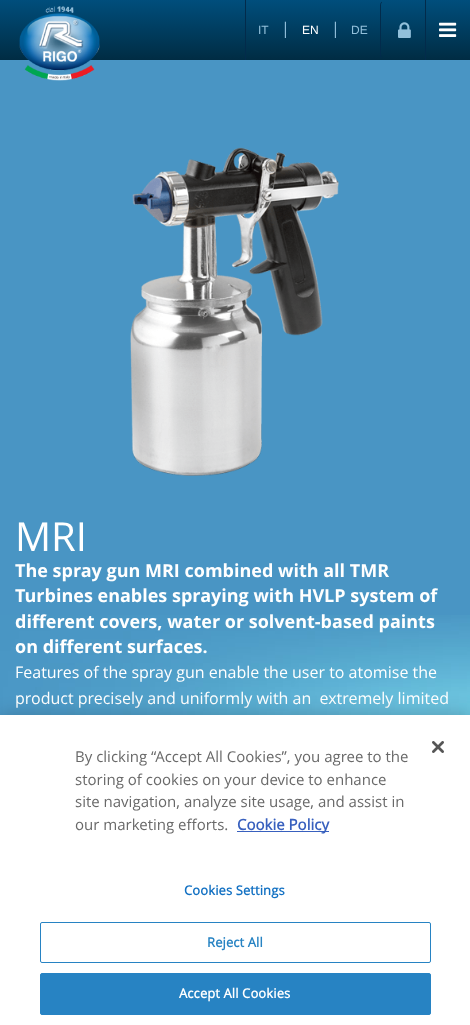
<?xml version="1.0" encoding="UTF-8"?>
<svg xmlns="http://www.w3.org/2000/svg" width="470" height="1025">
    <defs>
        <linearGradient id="g1" gradientUnits="userSpaceOnUse" x1="235" y1="0" x2="235" y2="60"><stop offset="0" stop-color="#004E7C"/><stop offset="1" stop-color="#002C43"/></linearGradient>
        <filter id="blur1" x="-50%" y="-200%" width="200%" height="500%"><feGaussianBlur stdDeviation="9"/></filter>
    </defs>
    <rect width="100%" height="100%" fill="#4995C4"/>
    <rect x="0" y="0" width="470" height="60" fill="url(#g1)"/>
    <image x="19" y="6" width="81" height="75" href="img_01.png"/>
    <rect x="245" y="0" width="1" height="60" fill="#022B4B"/>
    <text x="258" y="34" font-family="Liberation Sans" font-size="12" fill="#92C0DB">IT</text>
    <text x="281" y="34" font-family="Open Sans" font-size="16" fill="#92C0DB">|</text>
    <text x="302" y="34" font-family="Liberation Sans" font-size="12" fill="#FFFFFF">EN</text>
    <text x="331" y="34" font-family="Open Sans" font-size="16" fill="#92C0DB">|</text>
    <text x="351" y="34" font-family="Liberation Sans" font-size="12" fill="#92C0DB">DE</text>
    <path d="M 382 58 C 381 57.5 380.5 56 380.5 55 V 5 C 380.5 4 381 2.5 382 2" fill="none" stroke="#022B4B"/>
    <image x="398" y="22" width="13" height="16" href="img_02.png"/>
    <rect x="425" y="0" width="1" height="60" fill="#022B4B"/>
    <image x="439" y="22" width="18" height="15" href="img_03.png"/>
    <image x="0" y="615" width="470" height="100" href="img_04.png"/>
    <image x="130" y="147" width="209" height="329" href="img_05.png"/>
    <text x="15" y="551" font-family="Open Sans" font-size="40" fill="#FFFFFF">MRI</text>
    <text font-family="Open Sans" font-size="18" font-weight="700" fill="#FFFFFF">
        <tspan x="15" y="577">The spray gun MRI combined with all TMR</tspan>
        <tspan x="15" y="602">Turbines enables spraying with HVLP system of</tspan>
        <tspan x="15" y="628">different covers, water or solvent-based paints</tspan>
        <tspan x="15" y="653">on different surfaces.</tspan>
    </text>
    <text font-family="Open Sans" font-size="16" fill="#FFFFFF" xml:space="preserve"><tspan x="15" y="678">Features of the spray gun enable the user to atomise the</tspan><tspan x="15" y="704">product precisely and uniformly with an  extremely limited</tspan></text>
    <rect x="0" y="715" width="470" height="310" fill="#000000" fill-opacity="0.2" filter="url(#blur1)"/>
    <rect x="0" y="715" width="470" height="310" fill="#FFFFFF"/>
    <image x="432" y="741" width="12" height="12" href="img_06.png"/>
    <text font-family="Open Sans" font-size="15" fill="#696969">
        <tspan x="75" y="762">By clicking “Accept All Cookies”, you agree to the</tspan>
        <tspan x="75" y="785">storing of cookies on your device to enhance</tspan>
        <tspan x="75" y="807">site navigation, analyze site usage, and assist in</tspan>
        <tspan x="75" y="830">our marketing efforts.</tspan>
    </text>
    <rect x="237" y="831" width="92" height="1" fill="#3860BE"/>
    <text x="237" y="830" font-family="'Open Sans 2'" font-size="15" font-weight="700" fill="#3860BE">Cookie Policy</text>
    <text x="184" y="895" font-family="'Open Sans 2'" font-size="13" font-weight="700" letter-spacing="0.1" fill="#1371C3">Cookies Settings</text>
    <rect x="40.5" y="922.5" width="390" height="40" rx="1.5" fill="none" stroke="#2783C3"/>
    <text x="207" y="947" font-family="'Open Sans 2'" font-size="13" font-weight="700" letter-spacing="0.1" fill="#2783C3">Reject All</text>
    <rect x="40.5" y="973.5" width="390" height="41" rx="1.5" fill="#2783C3" stroke="#2783C3"/>
    <text x="179" y="998" font-family="'Open Sans 2'" font-size="13" font-weight="700" letter-spacing="0.1" fill="#FFFFFF">Accept All Cookies</text>
</svg>
